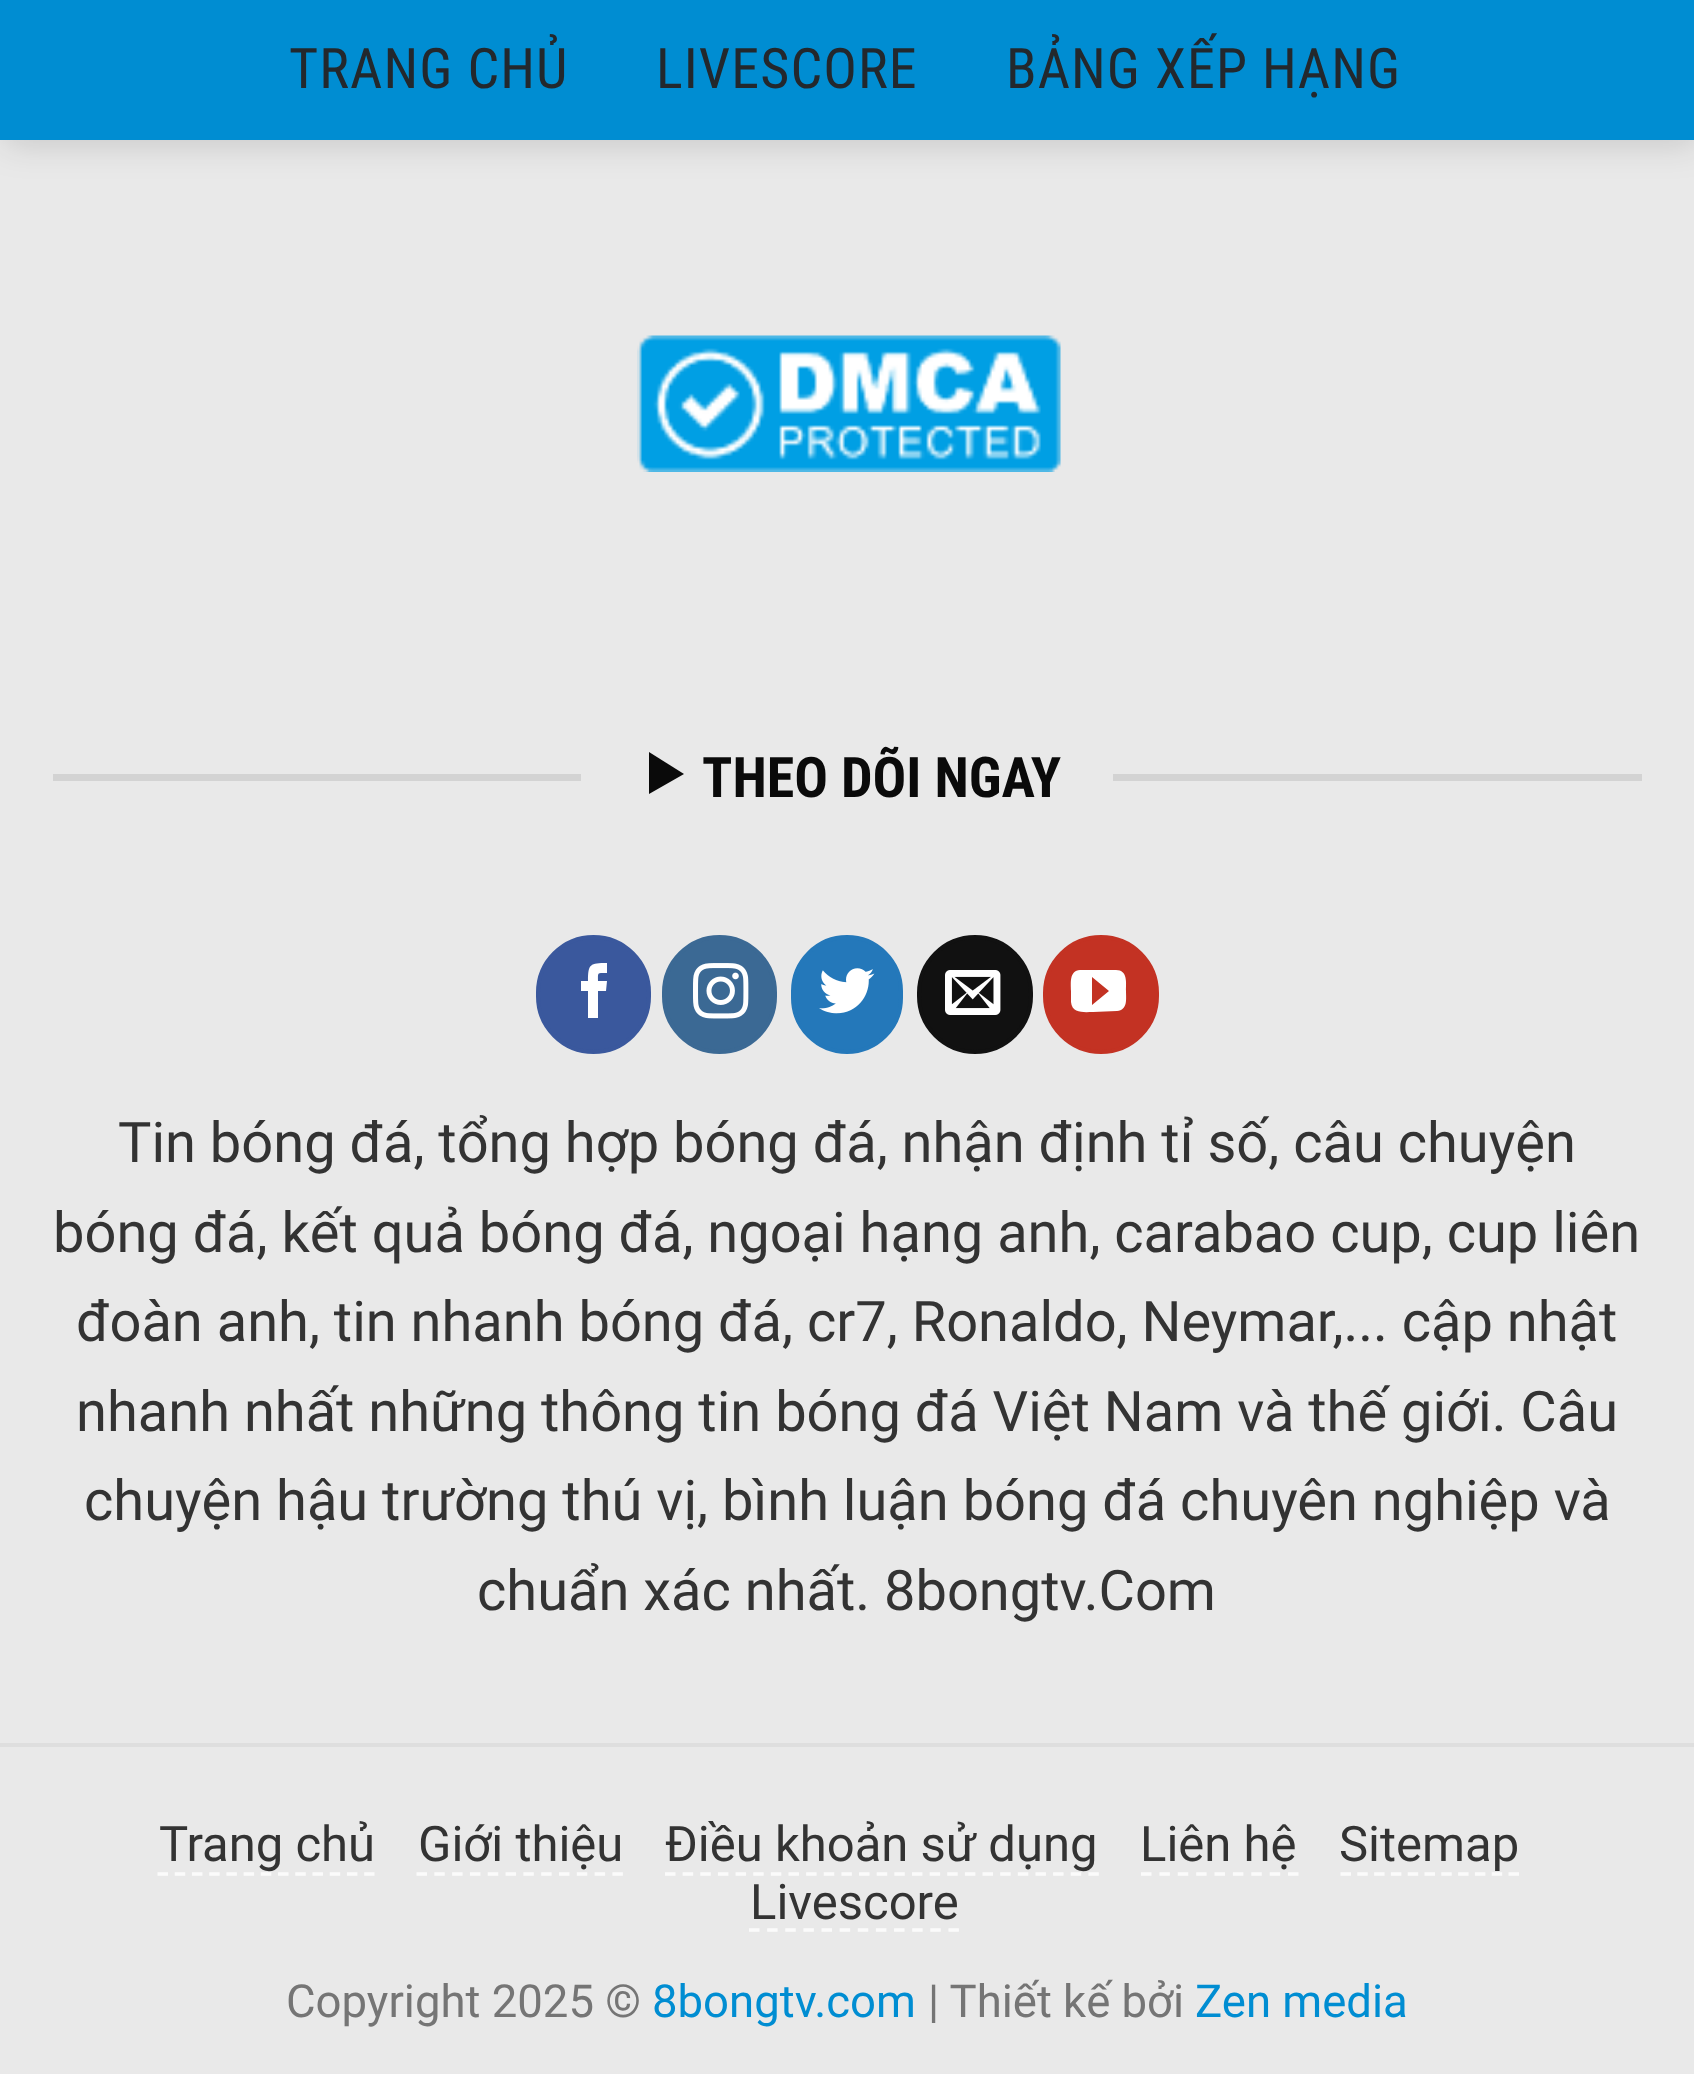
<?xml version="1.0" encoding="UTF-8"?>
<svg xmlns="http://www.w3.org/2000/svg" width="1694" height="2074">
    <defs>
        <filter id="blur1" x="-50%" y="-200%" width="200%" height="500%"><feGaussianBlur stdDeviation="17.5"/></filter>
    </defs>
    <rect width="100%" height="100%" fill="#E9E9E9"/>
    <rect x="4" y="4" width="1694" height="140" fill="#000000" fill-opacity="0.15" filter="url(#blur1)"/>
    <rect x="0" y="0" width="1694" height="140" fill="#008DD2"/>
    <text x="289" y="88" font-family="Roboto Condensed" font-size="56" letter-spacing="1.1" fill="#23282D">TRANG CHỦ</text>
    <text x="656" y="88" font-family="Roboto Condensed" font-size="56" letter-spacing="1.1" fill="#23282D">LIVESCORE</text>
    <text x="1006" y="88" font-family="Roboto Condensed" font-size="56" letter-spacing="1.1" fill="#23282D">BẢNG XẾP HẠNG</text>
    <image x="637" y="335" width="424" height="137" href="img_01.png"/>
    <rect x="53" y="774" width="528" height="7" fill="#D3D3D3"/>
    <path d="M 649 752 L 684 774 L 649 794 Z" fill="#0A0A0A"/>
    <text x="702" y="797" font-family="Roboto Condensed" font-size="56" font-weight="700" fill="#0A0A0A">THEO DÕI NGAY</text>
    <rect x="1113" y="774" width="529" height="7" fill="#D3D3D3"/>
    <rect x="538" y="937" width="111" height="115" rx="55.5" fill="#3A589D" stroke="#3A589D" stroke-width="4"/>
    <path d="M 598 1018 H 588 V 991 H 581 V 981 H 588 C 588 964 590 963 607 963 V 973 C 597 973 598 972 598 981 H 607 L 606 991 H 598 Z" fill="#FFFFFF"/>
    <rect x="664" y="937" width="111" height="115" rx="55.5" fill="#3B6994" stroke="#3B6994" stroke-width="4"/>
    <image x="693" y="963" width="56" height="56" href="img_02.png"/>
    <rect x="793" y="937" width="108" height="115" rx="54" fill="#2478BA" stroke="#2478BA" stroke-width="4"/>
    <image x="819" y="968" width="56" height="46" href="img_03.png"/>
    <rect x="919" y="937" width="112" height="115" rx="56" fill="#111111" stroke="#111111" stroke-width="4"/>
    <image x="945" y="970" width="56" height="45" href="img_04.png"/>
    <rect x="1045" y="937" width="112" height="115" rx="56" fill="#C33223" stroke="#C33223" stroke-width="4"/>
    <path d="M 1116 970 H 1080 C 1069 971 1071 983 1071 991 V 1002 C 1072 1014 1085 1012 1093 1012 L 1117 1011 C 1128 1010 1126 999 1126 991 C 1126 983 1128 970 1116 970 Z M 1092 1005 V 977 L 1109 991 Z" fill="#FFFFFF"/>
    <text x="118" y="1162" font-family="Roboto" font-size="56" fill="#333333">Tin bóng đá, tổng hợp bóng đá, nhận định tỉ số, câu chuyện</text>
    <text x="53" y="1252" font-family="Roboto" font-size="56" fill="#333333">bóng đá, kết quả bóng đá, ngoại hạng anh, carabao cup, cup liên</text>
    <text font-family="Roboto" font-size="56" fill="#333333">
        <tspan x="76" y="1341">đoàn anh, tin nhanh bóng đá, cr7, Ronaldo, Neymar,... cập nhật</tspan>
        <tspan x="76" y="1431">nhanh nhất những thông tin bóng đá Việt Nam và thế giới. Câu</tspan>
    </text>
    <text x="84" y="1520" font-family="Roboto" font-size="56" fill="#333333">chuyện hậu trường thú vị, bình luận bóng đá chuyên nghiệp và</text>
    <text x="477" y="1610" font-family="Roboto" font-size="56" fill="#333333">chuẩn xác nhất. 8bongtv.Com</text>
    <rect x="0" y="1743" width="1694" height="4" fill="#DEDEDE"/>
    <text x="159" y="1861" font-family="Roboto" font-size="49" fill="#333333">Trang chủ</text>
    <path d="M 157.5 1874 H 374.5" fill="none" stroke="#FBFBFB" stroke-width="3.5" stroke-dasharray="10.5 6.72"/>
    <text x="418" y="1861" font-family="Roboto" font-size="49" fill="#333333">Giới thiệu</text>
    <path d="M 416.5 1874 H 623" fill="none" stroke="#FBFBFB" stroke-width="3.5" stroke-dasharray="10.5 7.31"/>
    <text x="665" y="1861" font-family="Roboto" font-size="49" fill="#333333">Điều khoản sử dụng</text>
    <path d="M 665 1874 H 1099" fill="none" stroke="#FBFBFB" stroke-width="3.5" stroke-dasharray="10.5 7.14"/>
    <text x="1140" y="1861" font-family="Roboto" font-size="49" fill="#333333">Liên hệ</text>
    <path d="M 1141 1874 H 1298.5" fill="none" stroke="#FBFBFB" stroke-width="3.5" stroke-dasharray="10.5 7.88"/>
    <text x="1339" y="1861" font-family="Roboto" font-size="49" fill="#333333">Sitemap</text>
    <path d="M 1340.5 1874 H 1519" fill="none" stroke="#FBFBFB" stroke-width="3.5" stroke-dasharray="10.5 6.3"/>
    <text x="750" y="1919" font-family="Roboto" font-size="49" fill="#333333">Livescore</text>
    <path d="M 749 1930 H 959" fill="none" stroke="#FBFBFB" stroke-width="3.5" stroke-dasharray="10.5 7.63"/>
    <text x="286" y="2017" font-family="Roboto" font-size="45.5" fill="#757575">Copyright 2025 ©</text>
    <text x="652" y="2017" font-family="Roboto" font-size="45.5" fill="#008DD2">8bongtv.com</text>
    <text x="928" y="2017" font-family="Roboto" font-size="45.5" fill="#757575">| Thiết kế bởi</text>
    <text x="1195" y="2017" font-family="Roboto" font-size="45.5" fill="#008DD2">Zen media</text>
</svg>
